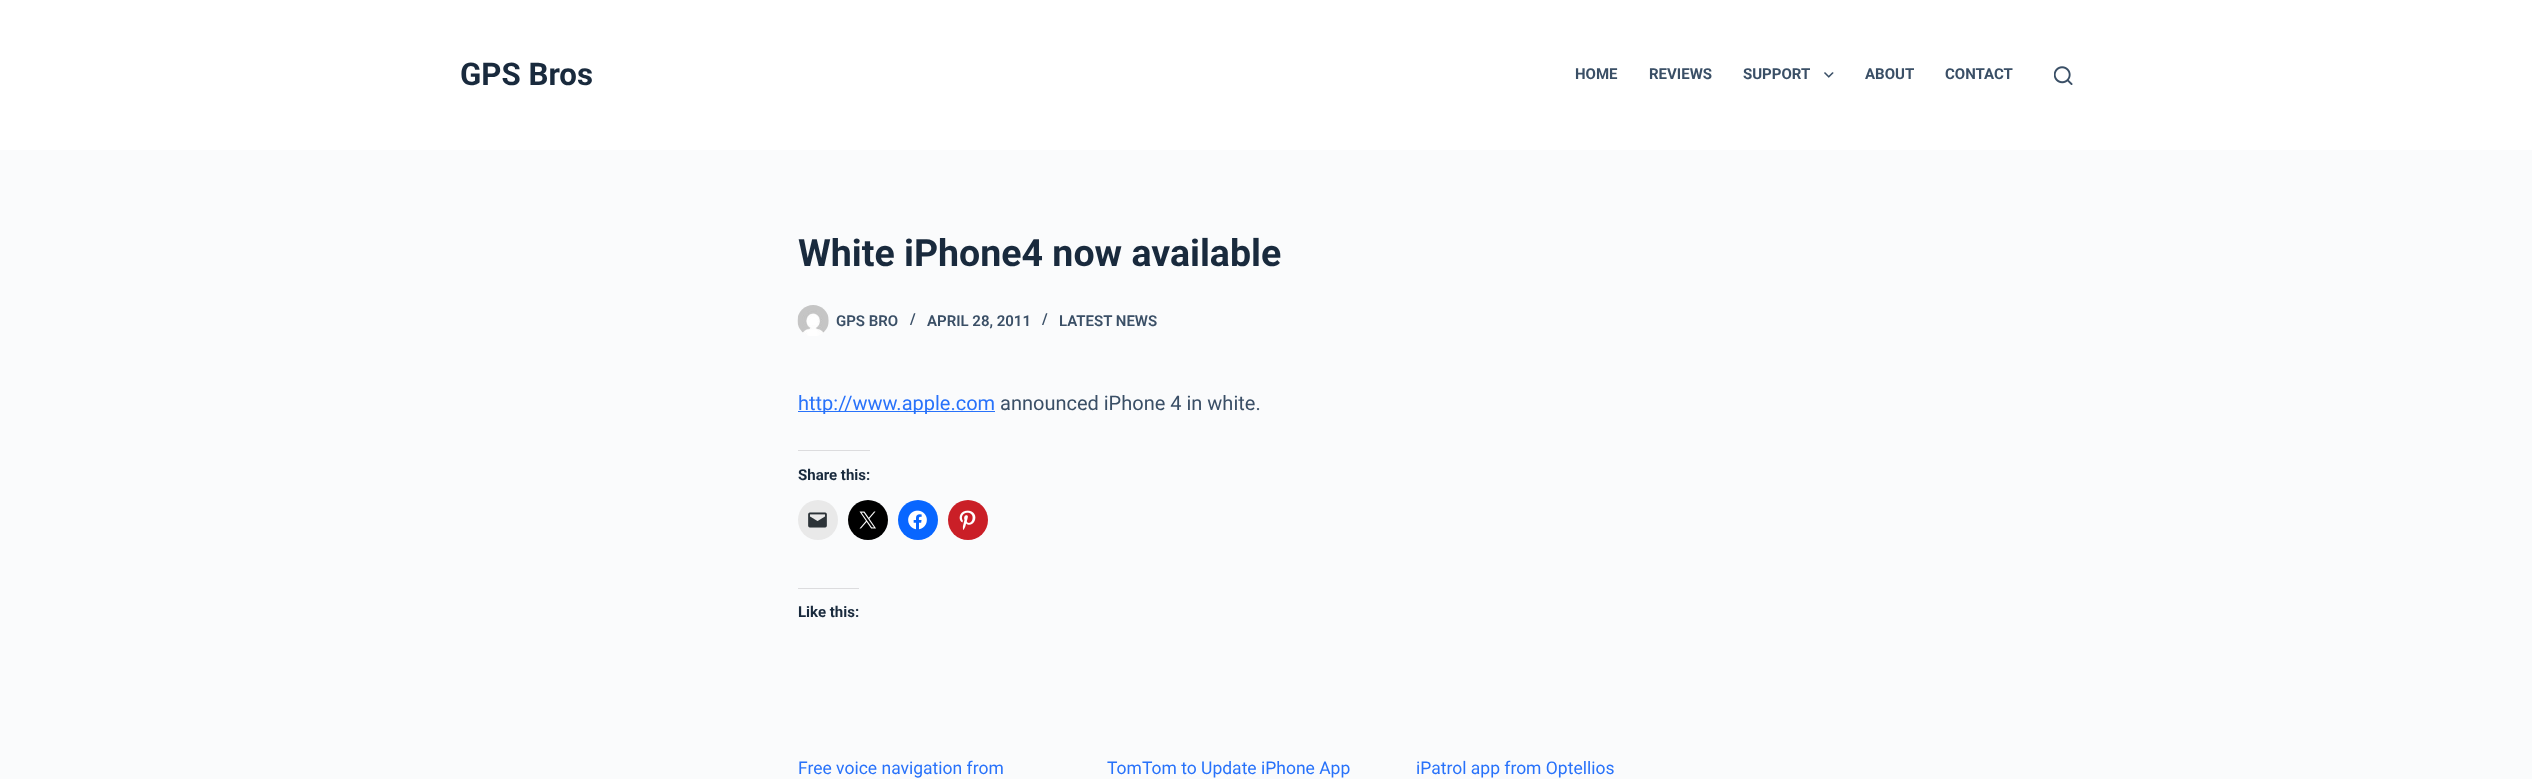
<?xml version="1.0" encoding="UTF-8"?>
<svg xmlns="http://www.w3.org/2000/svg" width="2532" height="779">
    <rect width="100%" height="100%" fill="#FAFBFC"/>
    <rect x="0" y="0" width="2532" height="150" fill="#FFFFFF"/>
    <text x="460" y="85" font-family="Roboto" font-size="31.25" font-weight="700" fill="#192A3D">GPS Bros</text>
    <text x="1575" y="79" font-family="Roboto" font-size="15" font-weight="700" fill="#3A4F66">HOME</text>
    <text x="1649" y="79" font-family="Roboto" font-size="15" font-weight="700" fill="#3A4F66">REVIEWS</text>
    <text x="1743" y="79" font-family="Roboto" font-size="15" font-weight="700" fill="#3A4F66">SUPPORT</text>
    <image x="1824" y="72" width="10" height="6" href="img_01.png"/>
    <text x="1865" y="79" font-family="Roboto" font-size="15" font-weight="700" fill="#3A4F66">ABOUT</text>
    <text x="1945" y="79" font-family="Roboto" font-size="15" font-weight="700" fill="#3A4F66">CONTACT</text>
    <image x="2054" y="66" width="19" height="19" href="img_02.png"/>
    <text x="798" y="266" font-family="Roboto" font-size="37.5" font-weight="700" fill="#192A3D">White iPhone4 now available</text>
    <image x="797" y="305" width="32" height="31" href="img_03.png"/>
    <text x="836" y="326" font-family="Roboto" font-size="15" font-weight="600" fill="#3A4F66">GPS BRO</text>
    <text x="910" y="324" font-family="Roboto" font-size="15" font-weight="600" fill="#3A4F66">/</text>
    <text x="927" y="326" font-family="Roboto" font-size="15" font-weight="600" fill="#3A4F66">APRIL 28, 2011</text>
    <text x="1042" y="324" font-family="Roboto" font-size="15" font-weight="600" fill="#3A4F66">/</text>
    <text x="1059" y="326" font-family="Roboto" font-size="15" font-weight="600" fill="#3A4F66">LATEST NEWS</text>
    <rect x="798" y="411" width="197" height="1" fill="#2872FA"/>
    <text x="798" y="410" font-family="Roboto" font-size="20" fill="#2872FA">http://www.apple.com</text>
    <text x="1000" y="410" font-family="Roboto" font-size="20" fill="#3A4F66">announced iPhone 4 in white.</text>
    <rect x="798" y="450" width="72" height="1" fill="#DCDCDE"/>
    <text x="798" y="480" font-family="Roboto" font-size="15" font-weight="700" fill="#192A3D">Share this:</text>
    <circle cx="818" cy="520" r="20" fill="#E9E9E9"/>
    <image x="808" y="512" width="19" height="16" href="img_04.png"/>
    <circle cx="868" cy="520" r="20" fill="#000000"/>
    <image x="859" y="511" width="17" height="18" href="img_05.png"/>
    <circle cx="918" cy="520" r="20" fill="#0866FF"/>
    <image x="908" y="510" width="19" height="20" href="img_06.png"/>
    <circle cx="968" cy="520" r="20" fill="#CA1F27"/>
    <image x="959" y="510" width="17" height="20" href="img_07.png"/>
    <rect x="798" y="588" width="61" height="1" fill="#DCDCDE"/>
    <text x="798" y="617" font-family="Roboto" font-size="15" font-weight="700" fill="#192A3D">Like this:</text>
    <text x="798" y="774" font-family="Roboto" font-size="17.5" fill="#2872FA">Free voice navigation from</text>
    <text x="1107" y="774" font-family="Roboto" font-size="17.5" fill="#2872FA">TomTom to Update iPhone App</text>
    <text x="1416" y="774" font-family="Roboto" font-size="17.5" fill="#2872FA">iPatrol app from Optellios</text>
</svg>
